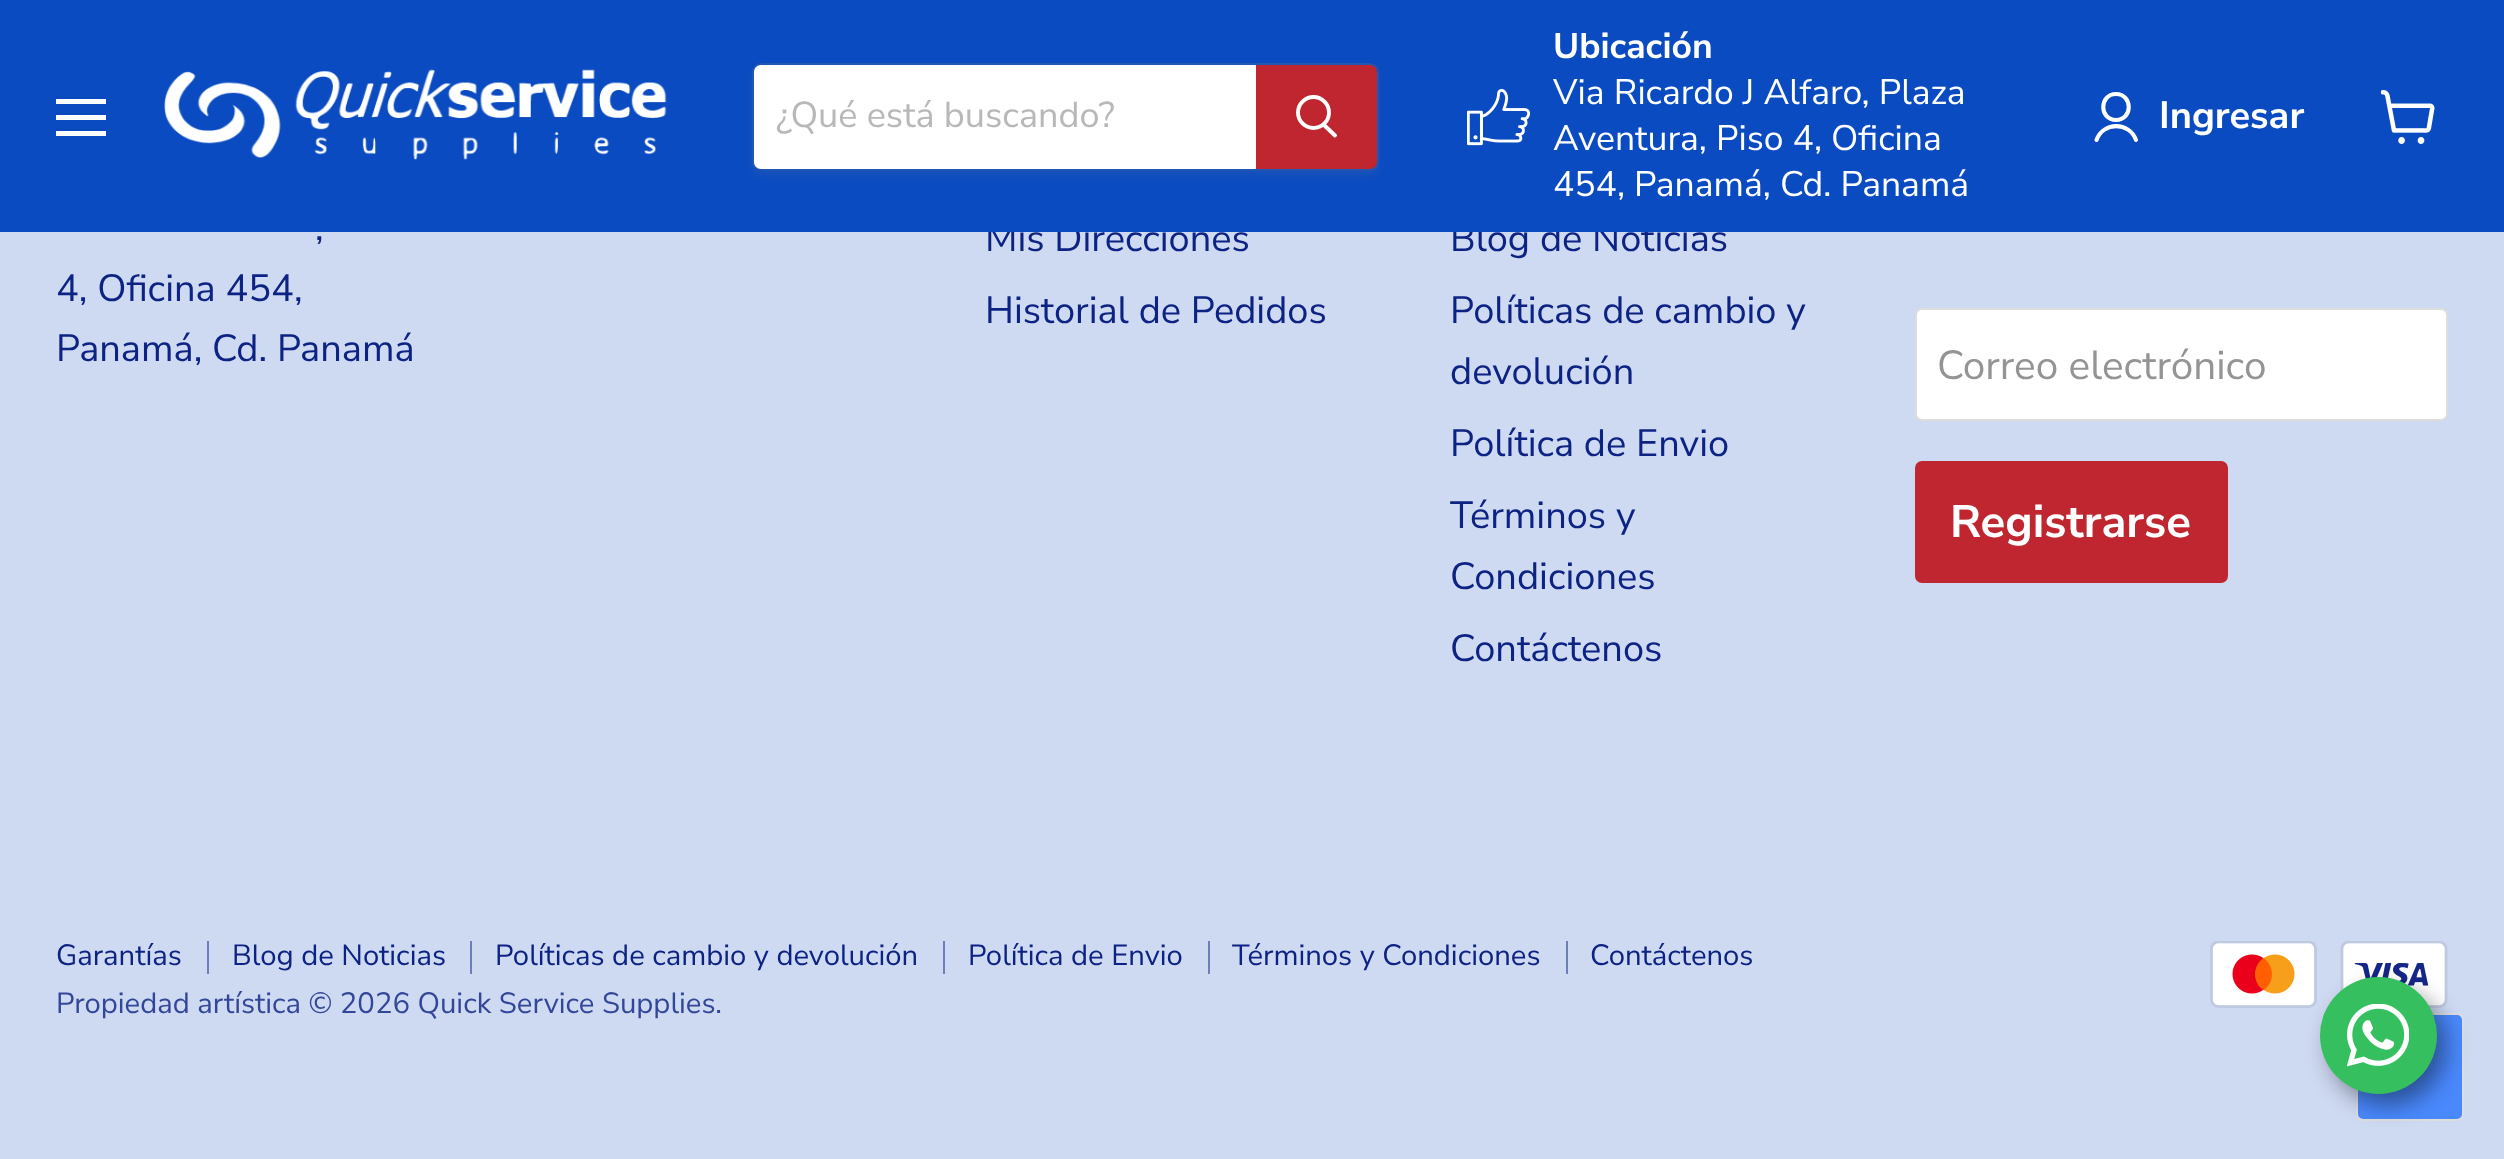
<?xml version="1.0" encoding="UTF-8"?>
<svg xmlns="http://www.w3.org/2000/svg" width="2504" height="1159">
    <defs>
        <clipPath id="clip1"><path d="M 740 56 H 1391 V 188 H 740 Z M 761 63 H 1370 C 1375 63 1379 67 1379 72 V 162 C 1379 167 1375 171 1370 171 H 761 C 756 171 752 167 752 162 V 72 C 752 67 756 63 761 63 Z" clip-rule="evenodd"/></clipPath>
        <filter id="blur1" x="-50%" y="-200%" width="200%" height="500%"><feGaussianBlur stdDeviation="3.5"/></filter>
        <filter id="blur2" x="-50%" y="-200%" width="200%" height="500%"><feGaussianBlur stdDeviation="11"/></filter>
    </defs>
    <rect width="100%" height="100%" fill="#CED9F2"/>
    <text x="985" y="251" font-family="Nunito Sans" font-size="38" fill="#0C2383">Mis Direcciones</text>
    <text x="1450" y="251" font-family="Nunito Sans" font-size="38" fill="#0C2383">Blog de Noticias</text>
    <rect x="0" y="0" width="2504" height="232" fill="#0A4BC1"/>
    <rect x="56" y="99" width="50" height="5" fill="#FFFFFF"/>
    <rect x="56" y="115" width="50" height="5" fill="#FFFFFF"/>
    <rect x="56" y="131" width="50" height="5" fill="#FFFFFF"/>
    <image x="164" y="69" width="503" height="91" href="img_01.png"/>
    <g clip-path="url(#clip1)">
        <rect x="752" y="68" width="627" height="108" rx="9" fill="#808080" fill-opacity="0.11" filter="url(#blur1)"/>
    </g>
    <rect x="753" y="64" width="625" height="106" rx="8" fill="none" stroke="#808080" stroke-opacity="0.2" stroke-width="2"/>
    <path d="M 761 65 H 1256 V 169 H 761 C 757 169 754 166 754 162 V 72 C 754 68 757 65 761 65 Z" fill="#FFFFFF"/>
    <text x="776" y="127" font-family="Nunito Sans" font-size="36" fill="#B8B8B8">¿Qué está buscando?</text>
    <path d="M 1257 66 H 1370 C 1373.5 66 1376 68.5 1376 72 V 162 C 1376 165.5 1373.5 168 1370 168 H 1257 Z" fill="#BF262F" stroke="#BF262F" stroke-width="2"/>
    <path d="M 1335 135.5 L 1324 125" fill="none" stroke="#FFFFFF" stroke-width="3.9" stroke-linecap="round"/>
    <circle cx="1313.5" cy="112.5" r="15.5" fill="none" stroke="#FFFFFF" stroke-width="3.9"/>
    <image x="1467" y="88" width="63" height="58" href="img_02.png"/>
    <text x="1553" y="58" font-family="Nunito Sans" font-size="35.5" font-weight="700" fill="#FFFFFF">Ubicación</text>
    <text font-family="Nunito Sans" font-size="35.5" fill="#FFFFFF">
        <tspan x="1553" y="104">Via Ricardo J Alfaro, Plaza</tspan>
        <tspan x="1553" y="150">Aventura, Piso 4, Oficina</tspan>
        <tspan x="1553" y="196">454, Panamá, Cd. Panamá</tspan>
    </text>
    <path d="M 2116 120 C 2133 120 2133 94 2116 94 C 2099 94 2099 120 2116 120 Z M 2136 140 C 2129.5 121.5 2103 121.5 2096.5 140" fill="none" stroke="#FFFFFF" stroke-width="4.1" stroke-linecap="round" stroke-linejoin="round"/>
    <text x="2159" y="128" font-family="Nunito Sans" font-size="38" font-weight="700" fill="#FFFFFF">Ingresar</text>
    <image x="2381" y="90" width="54" height="54" href="img_03.png"/>
    <text x="315" y="240" font-family="Nunito Sans" font-size="38" fill="#0C2383">,</text>
    <text font-family="Nunito Sans" font-size="38" fill="#0C2383">
        <tspan x="56" y="301">4, Oficina 454,</tspan>
        <tspan x="56" y="361">Panamá, Cd. Panamá</tspan>
    </text>
    <text x="985" y="323" font-family="Nunito Sans" font-size="38" fill="#0C2383">Historial de Pedidos</text>
    <text font-family="Nunito Sans" font-size="38" fill="#0C2383">
        <tspan x="1450" y="323">Políticas de cambio y</tspan>
        <tspan x="1450" y="384">devolución</tspan>
        <tspan x="1450" y="456">Política de Envio</tspan>
        <tspan x="1450" y="528">Términos y</tspan>
        <tspan x="1450" y="589">Condiciones</tspan>
        <tspan x="1450" y="661">Contáctenos</tspan>
    </text>
    <rect x="1916" y="309" width="531" height="111" rx="6" fill="#FFFFFF" stroke="#DDDDDD" stroke-width="2"/>
    <text x="1937" y="379" font-family="Nunito Sans" font-size="40.5" fill="#949494">Correo electrónico</text>
    <rect x="1916" y="462" width="311" height="120" rx="6" fill="#BF262F" stroke="#BF262F" stroke-width="2"/>
    <text x="1950" y="537" font-family="Nunito Sans" font-size="45.5" font-weight="700" fill="#FFFFFF">Registrarse</text>
    <rect x="207" y="941" width="2" height="33" fill="#6D7EBB"/>
    <text x="56" y="965" font-family="Nunito Sans" font-size="29.25" fill="#0C2383">Garantías</text>
    <rect x="470" y="941" width="2" height="33" fill="#6D7EBB"/>
    <text x="232" y="965" font-family="Nunito Sans" font-size="29.25" fill="#0C2383">Blog de Noticias</text>
    <rect x="943" y="941" width="2" height="33" fill="#6D7EBB"/>
    <text x="495" y="965" font-family="Nunito Sans" font-size="29.25" fill="#0C2383">Políticas de cambio y devolución</text>
    <rect x="1208" y="941" width="2" height="33" fill="#6D7EBB"/>
    <text x="968" y="965" font-family="Nunito Sans" font-size="29.25" fill="#0C2383">Política de Envio</text>
    <rect x="1566" y="941" width="2" height="33" fill="#6D7EBB"/>
    <text x="1232" y="965" font-family="Nunito Sans" font-size="29.25" fill="#0C2383">Términos y Condiciones</text>
    <text x="1590" y="965" font-family="Nunito Sans" font-size="29.25" fill="#0C2383">Contáctenos</text>
    <text x="56" y="1013" font-family="Nunito Sans" font-size="29.25" fill="#334799">Propiedad artística © 2026 Quick Service Supplies.</text>
    <image x="2210" y="941" width="107" height="67" href="img_04.png"/>
    <image x="2340" y="941" width="108" height="67" href="img_05.png"/>
    <rect x="2357" y="1014" width="106" height="106" rx="6" fill="#4988FD" stroke="#DDDDDD" stroke-width="2"/>
    <rect x="2329" y="988" width="117" height="117" rx="58.5" fill="#000000" fill-opacity="0.4" filter="url(#blur2)"/>
    <circle cx="2378.5" cy="1035.5" r="58.5" fill="#36BF5F"/>
    <image x="2347" y="1004" width="62" height="63" href="img_06.png"/>
</svg>
